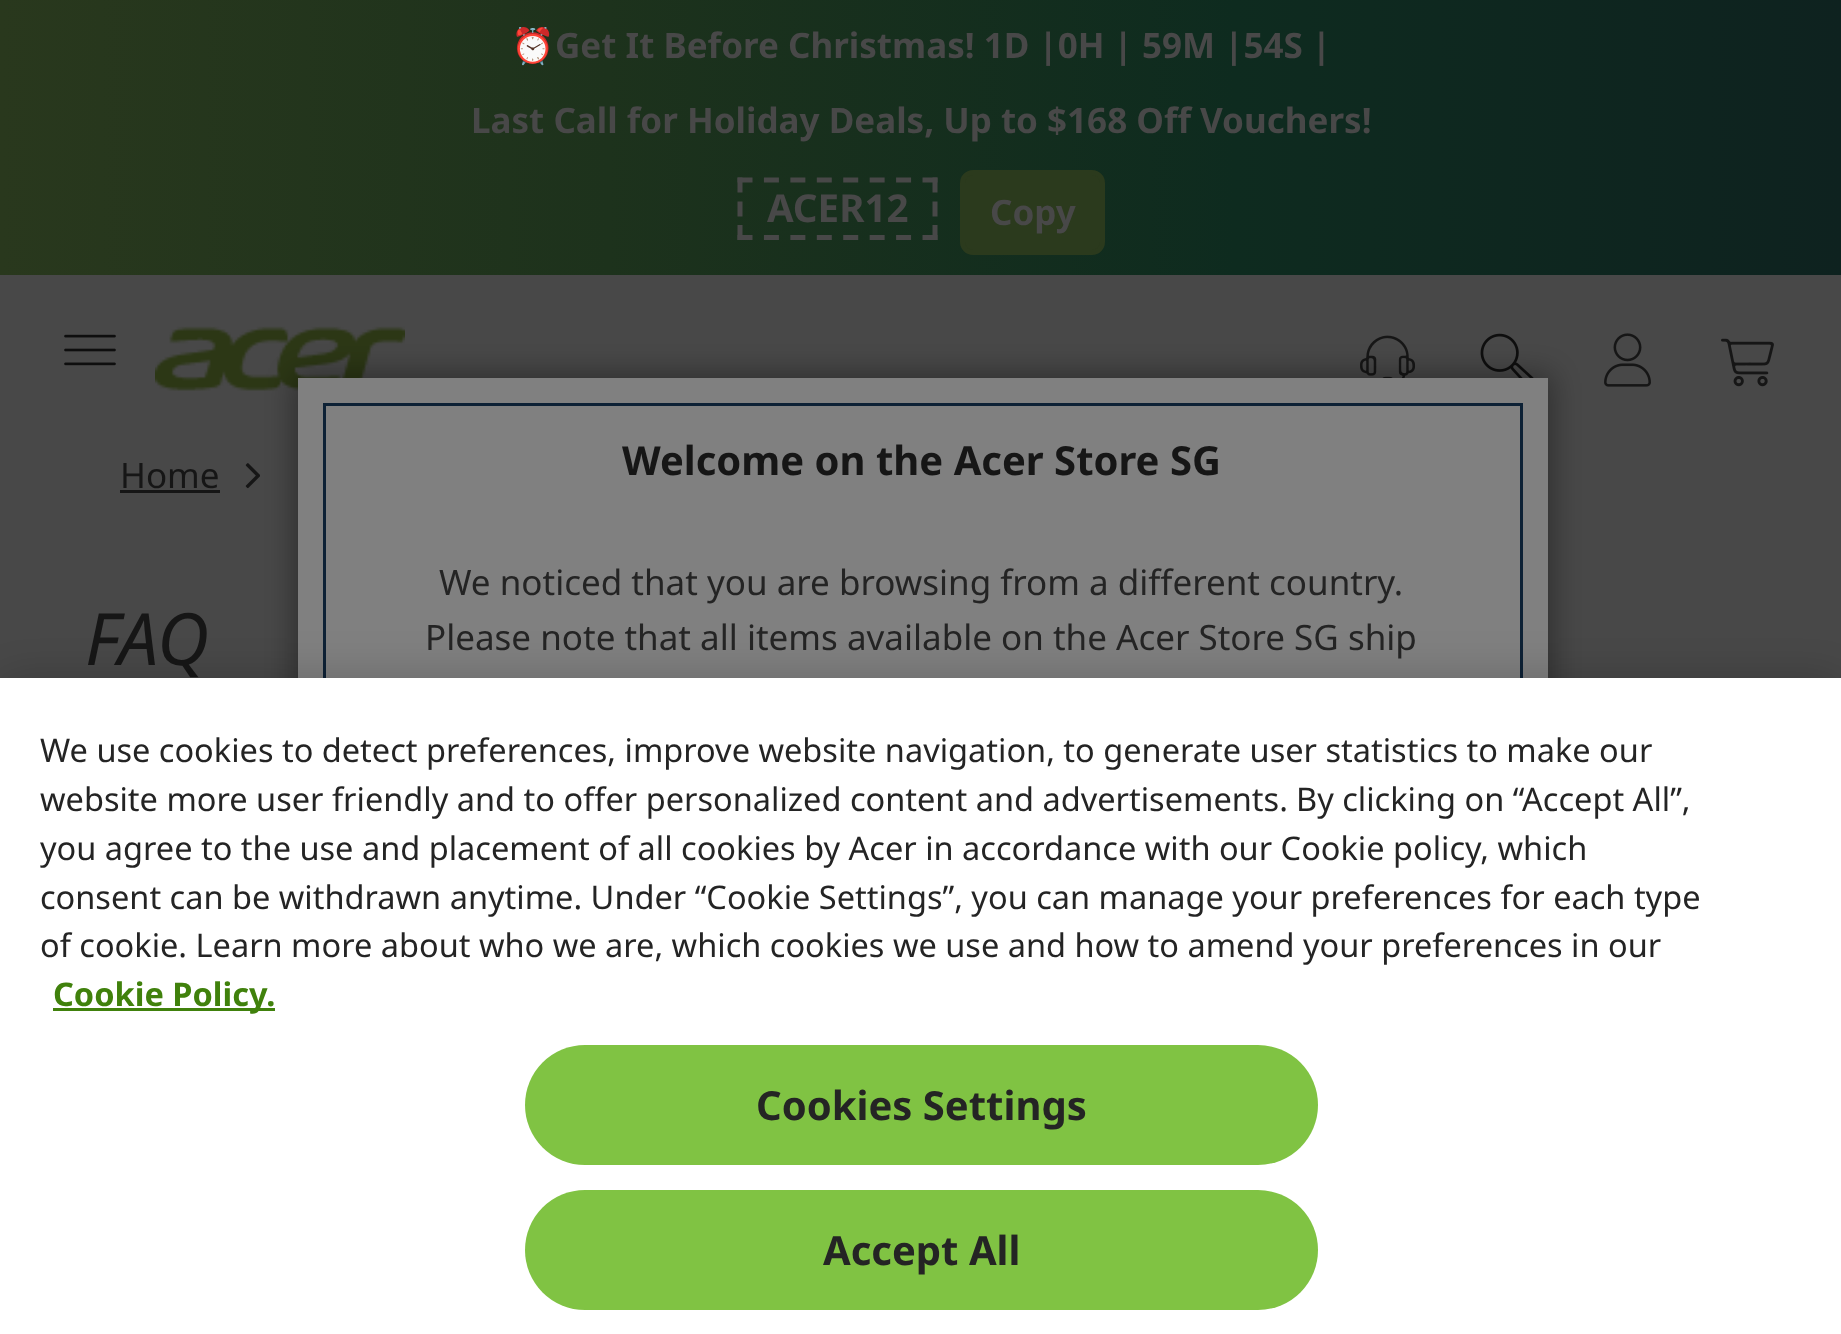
<?xml version="1.0" encoding="UTF-8"?>
<svg xmlns="http://www.w3.org/2000/svg" width="1841" height="1334">
    <defs>
        <linearGradient id="g1" gradientUnits="userSpaceOnUse" x1="0" y1="138" x2="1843" y2="137"><stop offset="0" stop-color="#29381D"/><stop offset="0.33" stop-color="#1D321C"/><stop offset="0.67" stop-color="#0E2B1F"/><stop offset="1" stop-color="#0E221F"/></linearGradient>
        <filter id="blur1" x="-50%" y="-200%" width="200%" height="500%"><feGaussianBlur stdDeviation="15"/></filter>
        <filter id="blur2" x="-50%" y="-200%" width="200%" height="500%"><feGaussianBlur stdDeviation="22.5"/></filter>
    </defs>
    <rect width="100%" height="100%" fill="#484848"/>
    <rect x="0" y="0" width="1841" height="275" fill="url(#g1)"/>
    <text x="511" y="58" font-family="Noto Color Emoji" font-size="35" font-weight="700" fill="#484848">⏰</text>
    <text x="555" y="58" font-family="Noto Sans" font-size="35" font-weight="700" fill="#484848">Get It Before Christmas! 1D |0H | 59M |54S |</text>
    <text x="471" y="133" font-family="Noto Sans" font-size="35" font-weight="700" fill="#484848">Last Call for Holiday Deals, Up to $168 Off Vouchers!</text>
    <text x="767" y="222" font-family="Noto Sans" font-size="38.5" font-weight="700" fill="#484848">ACER12</text>
    <path d="M 737.5 180 H 937.5" fill="none" stroke="#484848" stroke-width="5" stroke-dasharray="15 11.43"/>
    <path d="M 935 177.5 V 192.5 M 935 201.5 V 216.5 M 935 225 V 240" fill="none" stroke="#484848" stroke-width="5"/>
    <path d="M 737.5 237.5 H 937.5" fill="none" stroke="#484848" stroke-width="5" stroke-dasharray="15 11.43"/>
    <path d="M 740 177.5 V 192.5 M 740 201.5 V 216.5 M 740 225 V 240" fill="none" stroke="#484848" stroke-width="5"/>
    <rect x="962.5" y="172.5" width="140" height="80" rx="10.5" fill="#2B3A1D" stroke="#2B3A1D" stroke-width="5"/>
    <text x="990" y="225" font-family="Noto Sans" font-size="35" font-weight="700" fill="#484848">Copy</text>
    <image x="64" y="334" width="52" height="32" href="img_01.png"/>
    <image x="155" y="326" width="250" height="65" href="img_02.png"/>
    <image x="1360" y="335" width="56" height="43" href="img_03.png"/>
    <image x="1480" y="333" width="54" height="45" href="img_04.png"/>
    <image x="1604" y="333" width="47" height="54" href="img_05.png"/>
    <image x="1721" y="338" width="53" height="49" href="img_06.png"/>
    <text x="120" y="488" font-family="Noto Sans" font-size="35" fill="#161616">Home</text>
    <rect x="120" y="490" width="100" height="3" fill="#161616"/>
    <image x="245" y="463" width="15" height="26" href="img_07.png"/>
    <text x="85" y="665" font-family="Noto Sans" font-size="72" font-style="italic" fill="#161616">FAQ</text>
    <rect x="293" y="373" width="1260" height="590" fill="#000000" fill-opacity="0.35" filter="url(#blur1)"/>
    <rect x="298" y="378" width="1250" height="300" fill="#808080"/>
    <rect x="324.5" y="404.5" width="1197" height="527" fill="none" stroke="#0D2135" stroke-width="3"/>
    <text x="622" y="475" font-family="Noto Sans" font-size="40" font-weight="700" fill="#161616">Welcome on the Acer Store SG</text>
    <text x="439" y="595" font-family="Noto Sans" font-size="35" fill="#242424">We noticed that you are browsing from a different country.</text>
    <text x="425" y="650" font-family="Noto Sans" font-size="35" fill="#242424">Please note that all items available on the Acer Store SG ship</text>
    <rect x="0" y="678" width="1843" height="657" fill="#000000" fill-opacity="0.2" filter="url(#blur2)"/>
    <rect x="0" y="678" width="1841" height="656" fill="#FFFFFF"/>
    <text font-family="Noto Sans" font-size="32.52" fill="#242424">
        <tspan x="40" y="762">We use cookies to detect preferences, improve website navigation, to generate user statistics to make our</tspan>
        <tspan x="40" y="811">website more user friendly and to offer personalized content and advertisements.</tspan>
    </text>
    <text x="1296" y="811" font-family="Noto Sans" font-size="32.52" fill="#242424">By clicking on “Accept All”,</text>
    <text font-family="Noto Sans" font-size="32.52" fill="#242424">
        <tspan x="40" y="860">you agree to the use and placement of all cookies by Acer in accordance with our Cookie policy, which</tspan>
        <tspan x="40" y="909">consent can be withdrawn anytime. Under “Cookie Settings”, you can manage your preferences for each type</tspan>
        <tspan x="40" y="957">of cookie. Learn more about who we are, which cookies we use and how to amend your preferences in our</tspan>
    </text>
    <rect x="53" y="1008" width="222" height="3" fill="#40810C"/>
    <text x="53" y="1006" font-family="Noto Sans" font-size="32.52" font-weight="700" fill="#40810C">Cookie Policy.</text>
    <rect x="525" y="1045" width="793" height="120" rx="60" fill="#80C343"/>
    <text x="756" y="1120" font-family="Noto Sans" font-size="40" font-weight="700" fill="#242424">Cookies Settings</text>
    <rect x="525" y="1190" width="793" height="120" rx="60" fill="#80C343"/>
    <text x="823" y="1265" font-family="Noto Sans" font-size="40" font-weight="700" fill="#242424">Accept All</text>
</svg>
